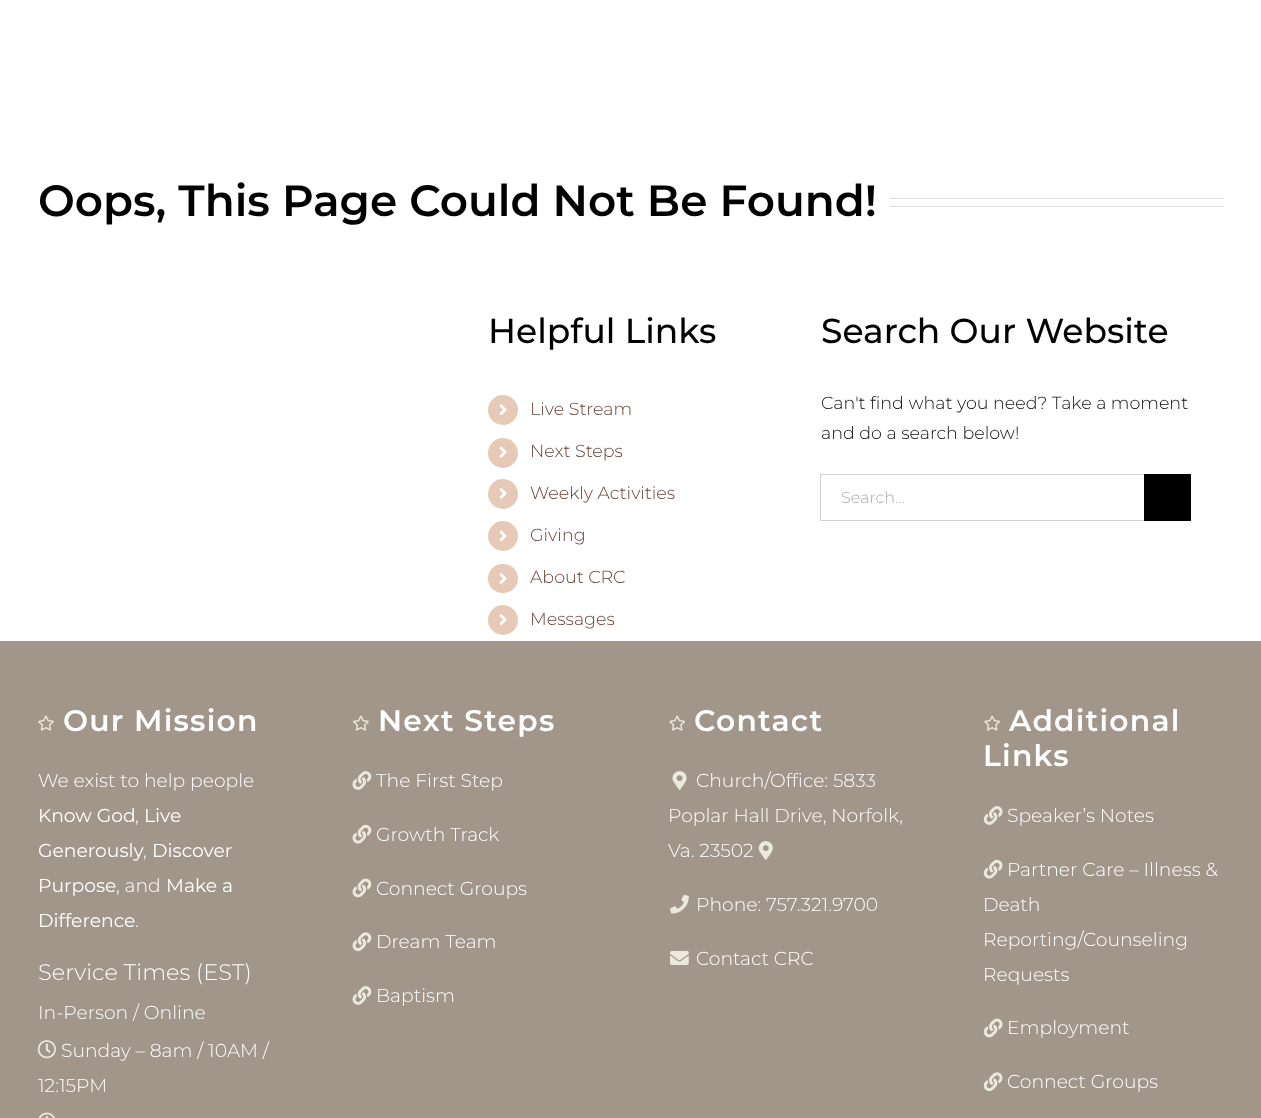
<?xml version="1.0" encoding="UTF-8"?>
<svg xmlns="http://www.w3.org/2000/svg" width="1261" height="1118">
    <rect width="100%" height="100%" fill="#FFFFFF"/>
    <text x="38" y="216" font-family="Montserrat" font-size="43.75" font-weight="600" fill="#000000">Oops, This Page Could Not Be Found!</text>
    <rect x="890" y="198" width="334" height="1" fill="#E0DEDE"/>
    <rect x="890" y="206" width="334" height="1" fill="#E0DEDE"/>
    <text x="488" y="343" font-family="Montserrat" font-size="34.5" font-weight="500" fill="#000000">Helpful Links</text>
    <circle cx="503" cy="410" r="15" fill="#E6CAB7"/>
    <image x="499" y="404" width="8" height="11" href="img_01.png"/>
    <text x="530" y="415" font-family="Montserrat" font-size="17.5" font-weight="300" fill="#68433A">Live Stream</text>
    <circle cx="503" cy="453" r="15" fill="#E6CAB7"/>
    <image x="499" y="446" width="8" height="12" href="img_02.png"/>
    <text x="530" y="457" font-family="Montserrat" font-size="17.5" font-weight="300" fill="#68433A">Next Steps</text>
    <circle cx="503" cy="494" r="15" fill="#E6CAB7"/>
    <image x="499" y="488" width="8" height="11" href="img_03.png"/>
    <text x="530" y="499" font-family="Montserrat" font-size="17.5" font-weight="300" fill="#68433A">Weekly Activities</text>
    <circle cx="503" cy="536" r="15" fill="#E6CAB7"/>
    <image x="499" y="530" width="8" height="12" href="img_04.png"/>
    <text x="530" y="541" font-family="Montserrat" font-size="17.5" font-weight="300" fill="#68433A">Giving</text>
    <rect x="488" y="564" width="30" height="29" rx="14.5" fill="#E6CAB7"/>
    <image x="499" y="573" width="8" height="11" href="img_03.png"/>
    <text x="530" y="583" font-family="Montserrat" font-size="17.5" font-weight="300" fill="#68433A">About CRC</text>
    <circle cx="503" cy="620" r="15" fill="#E6CAB7"/>
    <image x="499" y="614" width="8" height="11" href="img_01.png"/>
    <text x="530" y="625" font-family="Montserrat" font-size="17.5" font-weight="300" fill="#68433A">Messages</text>
    <text x="821" y="343" font-family="Montserrat" font-size="34.5" font-weight="500" fill="#000000">Search Our Website</text>
    <text font-family="Montserrat" font-size="17.5" font-weight="300" fill="#111111">
        <tspan x="821" y="409">Can't find what you need? Take a moment</tspan>
        <tspan x="821" y="439">and do a search below!</tspan>
    </text>
    <rect x="820" y="474" width="324" height="1" fill="#D2D2D2"/>
    <rect x="820" y="520" width="324" height="1" fill="#D2D2D2"/>
    <rect x="820" y="474" width="1" height="47" fill="#D2D2D2"/>
    <text x="841" y="503" font-family="Montserrat" font-size="16" font-weight="300" fill="#AAA9A9">Search...</text>
    <rect x="1144" y="474" width="47" height="47" fill="#000000"/>
    <rect x="0" y="641" width="1261" height="477" fill="#A2968A"/>
    <image x="38" y="715" width="16" height="16" href="img_05.png"/>
    <text x="63" y="731" font-family="Montserrat" font-size="29.75" font-weight="600" letter-spacing="1.25" fill="#FFFFFF">Our Mission</text>
    <text x="38" y="787" font-family="Montserrat" font-size="18.75" font-weight="300" fill="#FFFFFF">We exist to help people</text>
    <text x="38" y="822" font-family="Montserrat" font-size="18.75" fill="#FFFFFF">Know God</text>
    <text x="135" y="822" font-family="Montserrat" font-size="18.75" font-weight="300" fill="#FFFFFF">,</text>
    <text x="144" y="822" font-family="Montserrat" font-size="18.75" fill="#FFFFFF">Live</text>
    <text x="38" y="857" font-family="Montserrat" font-size="18.75" fill="#FFFFFF">Generously</text>
    <text x="143" y="857" font-family="Montserrat" font-size="18.75" font-weight="300" fill="#FFFFFF">,</text>
    <text x="152" y="857" font-family="Montserrat" font-size="18.75" fill="#FFFFFF">Discover</text>
    <text x="38" y="892" font-family="Montserrat" font-size="18.75" fill="#FFFFFF">Purpose</text>
    <text x="116" y="892" font-family="Montserrat" font-size="18.75" font-weight="300" fill="#FFFFFF">, and</text>
    <text x="166" y="892" font-family="Montserrat" font-size="18.75" fill="#FFFFFF">Make a</text>
    <text x="38" y="927" font-family="Montserrat" font-size="18.75" fill="#FFFFFF">Difference</text>
    <text x="135" y="927" font-family="Montserrat" font-size="18.75" font-weight="300" fill="#FFFFFF">.</text>
    <text x="38" y="980" font-family="Montserrat" font-size="22.5" font-weight="300" fill="#FFFFFF">Service Times (EST)</text>
    <text x="38" y="1019" font-family="Montserrat" font-size="18.75" font-weight="300" fill="#FFFFFF">In-Person / Online</text>
    <image x="37" y="1040" width="19" height="19" href="img_06.png"/>
    <text x="61" y="1057" font-family="Montserrat" font-size="18.75" font-weight="300" fill="#FFFFFF">Sunday – 8am / 10AM /</text>
    <text x="38" y="1092" font-family="Montserrat" font-size="18.75" font-weight="300" fill="#FFFFFF">12:15PM</text>
    <image x="38" y="1112" width="17" height="6" href="img_07.png"/>
    <image x="353" y="715" width="16" height="16" href="img_05.png"/>
    <text x="378" y="731" font-family="Montserrat" font-size="29.75" font-weight="600" letter-spacing="1.25" fill="#FFFFFF">Next Steps</text>
    <image x="352" y="771" width="20" height="19" href="img_08.png"/>
    <text x="376" y="787" font-family="Montserrat" font-size="18.75" font-weight="300" fill="#FFFFFF">The First Step</text>
    <image x="352" y="824" width="20" height="20" href="img_09.png"/>
    <text x="376" y="841" font-family="Montserrat" font-size="18.75" font-weight="300" fill="#FFFFFF">Growth Track</text>
    <image x="352" y="878" width="20" height="20" href="img_10.png"/>
    <text x="376" y="895" font-family="Montserrat" font-size="18.75" font-weight="300" fill="#FFFFFF">Connect Groups</text>
    <image x="352" y="932" width="20" height="20" href="img_11.png"/>
    <text x="376" y="948" font-family="Montserrat" font-size="18.75" font-weight="300" fill="#FFFFFF">Dream Team</text>
    <image x="352" y="986" width="20" height="19" href="img_08.png"/>
    <text x="376" y="1002" font-family="Montserrat" font-size="18.75" font-weight="300" fill="#FFFFFF">Baptism</text>
    <image x="669" y="715" width="16" height="16" href="img_12.png"/>
    <text x="694" y="731" font-family="Montserrat" font-size="29.75" font-weight="600" letter-spacing="1.25" fill="#FFFFFF">Contact</text>
    <image x="672" y="771" width="15" height="19" href="img_13.png"/>
    <text x="696" y="787" font-family="Montserrat" font-size="18.75" font-weight="300" fill="#FFFFFF">Church/Office: 5833</text>
    <text font-family="Montserrat" font-size="18.75" font-weight="300" fill="#FFFFFF">
        <tspan x="668" y="822">Poplar Hall Drive, Norfolk,</tspan>
        <tspan x="668" y="857">Va. 23502</tspan>
    </text>
    <image x="758" y="841" width="15" height="19" href="img_14.png"/>
    <image x="670" y="894" width="19" height="20" href="img_15.png"/>
    <text x="696" y="911" font-family="Montserrat" font-size="18.75" font-weight="300" fill="#FFFFFF">Phone: 757.321.9700</text>
    <image x="670" y="950" width="19" height="15" href="img_16.png"/>
    <text x="696" y="965" font-family="Montserrat" font-size="18.75" font-weight="300" fill="#FFFFFF">Contact CRC</text>
    <image x="984" y="715" width="16" height="16" href="img_12.png"/>
    <text x="1009" y="731" font-family="Montserrat" font-size="29.75" font-weight="600" letter-spacing="1.25" fill="#FFFFFF">Additional</text>
    <text x="983" y="766" font-family="Montserrat" font-size="29.75" font-weight="600" letter-spacing="1.25" fill="#FFFFFF">Links</text>
    <image x="983" y="806" width="20" height="19" href="img_17.png"/>
    <text x="1007" y="822" font-family="Montserrat" font-size="18.75" font-weight="300" fill="#FFFFFF">Speaker’s Notes</text>
    <image x="983" y="859" width="20" height="20" href="img_18.png"/>
    <text x="1007" y="876" font-family="Montserrat" font-size="18.75" font-weight="300" fill="#FFFFFF">Partner Care – Illness &amp;</text>
    <text font-family="Montserrat" font-size="18.75" font-weight="300" fill="#FFFFFF">
        <tspan x="983" y="911">Death</tspan>
        <tspan x="983" y="946">Reporting/Counseling</tspan>
        <tspan x="983" y="981">Requests</tspan>
    </text>
    <image x="983" y="1018" width="20" height="20" href="img_19.png"/>
    <text x="1007" y="1034" font-family="Montserrat" font-size="18.75" font-weight="300" fill="#FFFFFF">Employment</text>
    <image x="983" y="1072" width="20" height="20" href="img_20.png"/>
    <text x="1007" y="1088" font-family="Montserrat" font-size="18.75" font-weight="300" fill="#FFFFFF">Connect Groups</text>
</svg>
